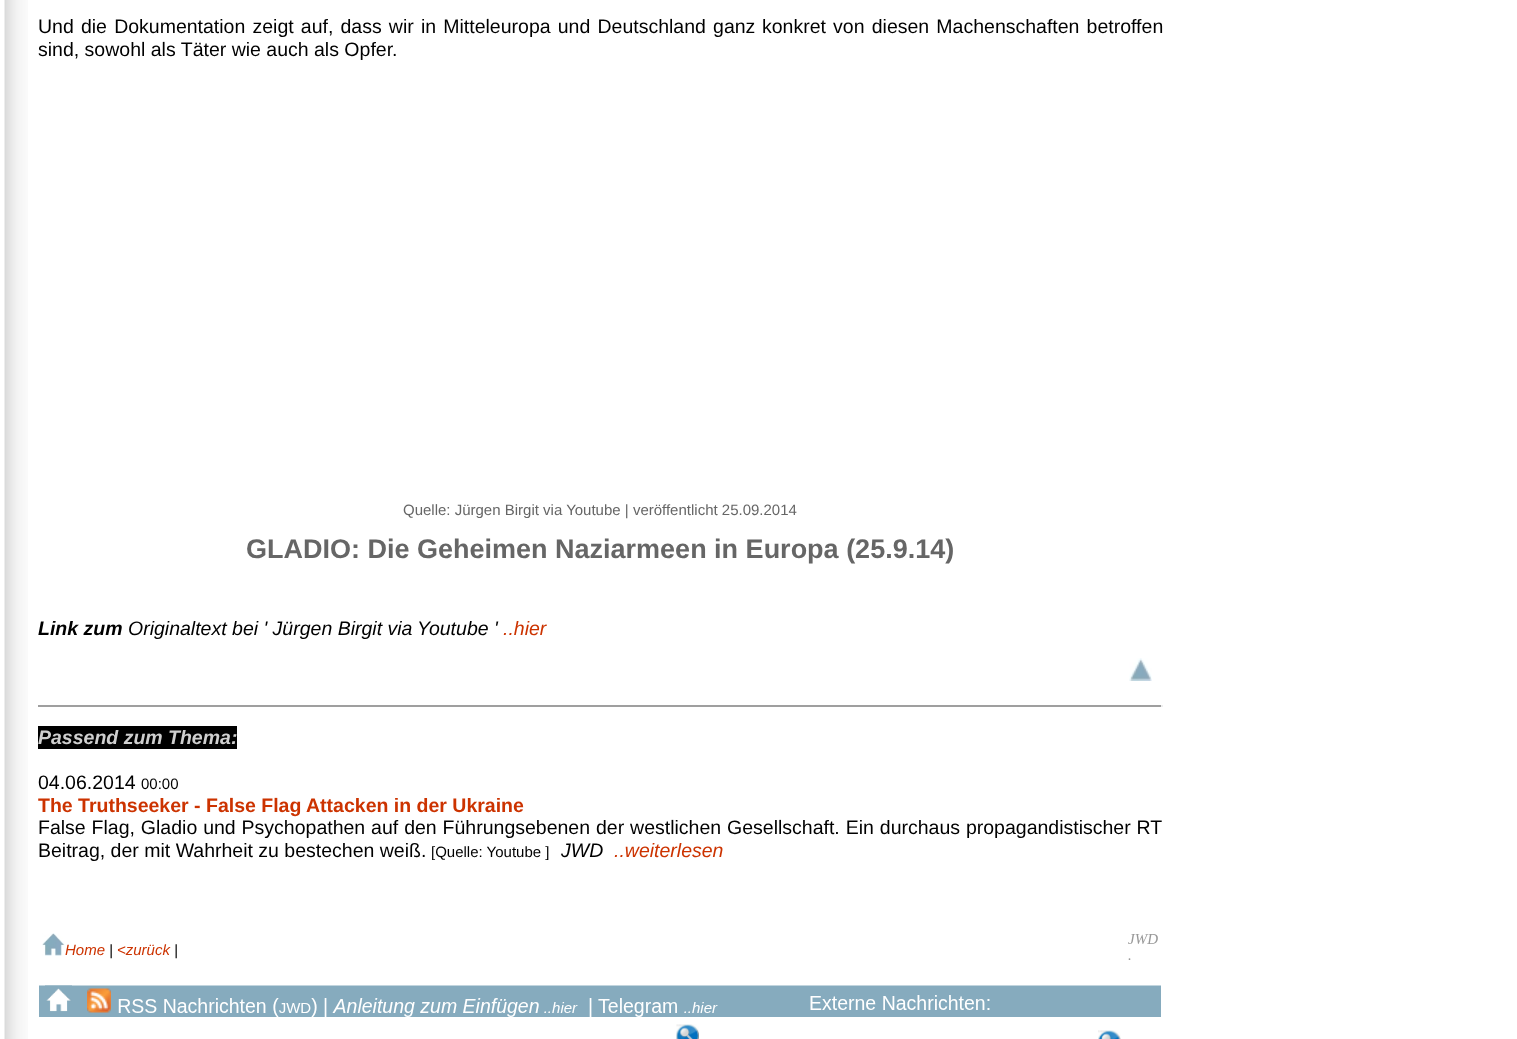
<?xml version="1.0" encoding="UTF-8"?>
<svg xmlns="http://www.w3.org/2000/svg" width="1517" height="1039">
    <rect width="100%" height="100%" fill="#FFFFFF"/>
    <image x="4" y="0" width="24" height="1039" href="img_01.png"/>
    <text x="38" y="33" word-spacing="1.75" font-family="Liberation Sans" font-size="19.5" fill="#000000">Und die Dokumentation zeigt auf, dass wir in Mitteleuropa und Deutschland ganz</text>
    <text x="762" y="33" word-spacing="1.75" font-family="Liberation Sans" font-size="19.5" fill="#000000">konkret von diesen Machenschaften betroffen</text>
    <text x="38" y="56" font-family="Liberation Sans" font-size="19.5" fill="#000000">sind, sowohl als Täter wie auch als Opfer.</text>
    <text x="403" y="515" font-family="Liberation Sans" font-size="15" fill="#666666">Quelle: Jürgen Birgit via Youtube | veröffentlicht 25.09.2014</text>
    <text x="246" y="558" font-family="Liberation Sans" font-size="27" font-weight="700" fill="#666666">GLADIO: Die Geheimen Naziarmeen in Europa (25.9.14)</text>
    <text x="38" y="635" font-family="Liberation Sans" font-size="19.5" font-weight="700" font-style="italic" fill="#000000">Link zum</text>
    <text x="128" y="635" font-family="Liberation Sans" font-size="19.5" font-style="italic" fill="#000000">Originaltext bei ' Jürgen Birgit via</text>
    <text x="417" y="635" font-family="Liberation Sans" font-size="19.5" font-style="italic" fill="#000000">Youtube '</text>
    <text x="503" y="635" font-family="Liberation Sans" font-size="19.5" font-style="italic" fill="#CC3300">..hier</text>
    <image x="1129" y="658" width="23" height="23" href="img_02.png"/>
    <rect x="38" y="705" width="1125" height="2" fill="#9F9F9F"/>
    <rect x="1161" y="705" width="2" height="2" fill="#EEEEEE"/>
    <rect x="38" y="726" width="199" height="23" fill="#000000"/>
    <text x="38" y="744" font-family="Liberation Sans" font-size="19.5" font-weight="700" font-style="italic" fill="#CFCFCF">Passend zum Thema:</text>
    <text x="38" y="789" font-family="Liberation Sans" font-size="19.5" fill="#000000">04.06.2014</text>
    <text x="141" y="789" font-family="Liberation Sans" font-size="15" fill="#000000">00:00</text>
    <text x="38" y="812" font-family="Liberation Sans" font-size="19.5" font-weight="700" fill="#CC3300">The Truthseeker - False Flag Attacken in der Ukraine</text>
    <text x="38" y="834" word-spacing="0.5" font-family="Liberation Sans" font-size="19.5" fill="#000000">False Flag, Gladio und Psychopathen auf den Führungsebenen</text>
    <text x="596" y="834" word-spacing="0.5" font-family="Liberation Sans" font-size="19.5" fill="#000000">der westlichen Gesellschaft. Ein durchaus propagandistischer RT</text>
    <text x="38" y="857" font-family="Liberation Sans" font-size="19.5" fill="#000000">Beitrag, der mit Wahrheit zu bestechen weiß.</text>
    <text x="431" y="857" font-family="Liberation Sans" font-size="15" fill="#000000">[Quelle: Youtube ]</text>
    <text x="561" y="857" font-family="Liberation Sans" font-size="19.5" font-style="italic" fill="#000000">JWD</text>
    <text x="614" y="857" font-family="Liberation Sans" font-size="19.5" font-style="italic" fill="#CC3300">..weiterlesen</text>
    <image x="42" y="933" width="23" height="23" href="img_03.png"/>
    <text x="65" y="955" font-family="Liberation Sans" font-size="15" font-style="italic" fill="#CC3300">Home</text>
    <text x="109" y="955" font-family="Liberation Sans" font-size="15" font-style="italic" fill="#000000">|</text>
    <text x="117" y="955" font-family="Liberation Sans" font-size="15" font-style="italic" fill="#CC3300">&lt;zurück</text>
    <text x="174" y="955" font-family="Liberation Sans" font-size="15" font-style="italic" fill="#000000">|</text>
    <image x="1128" y="934" width="30" height="26" href="img_04.png"/>
    <image x="39" y="985" width="1122" height="54" href="img_05.png"/>
</svg>
